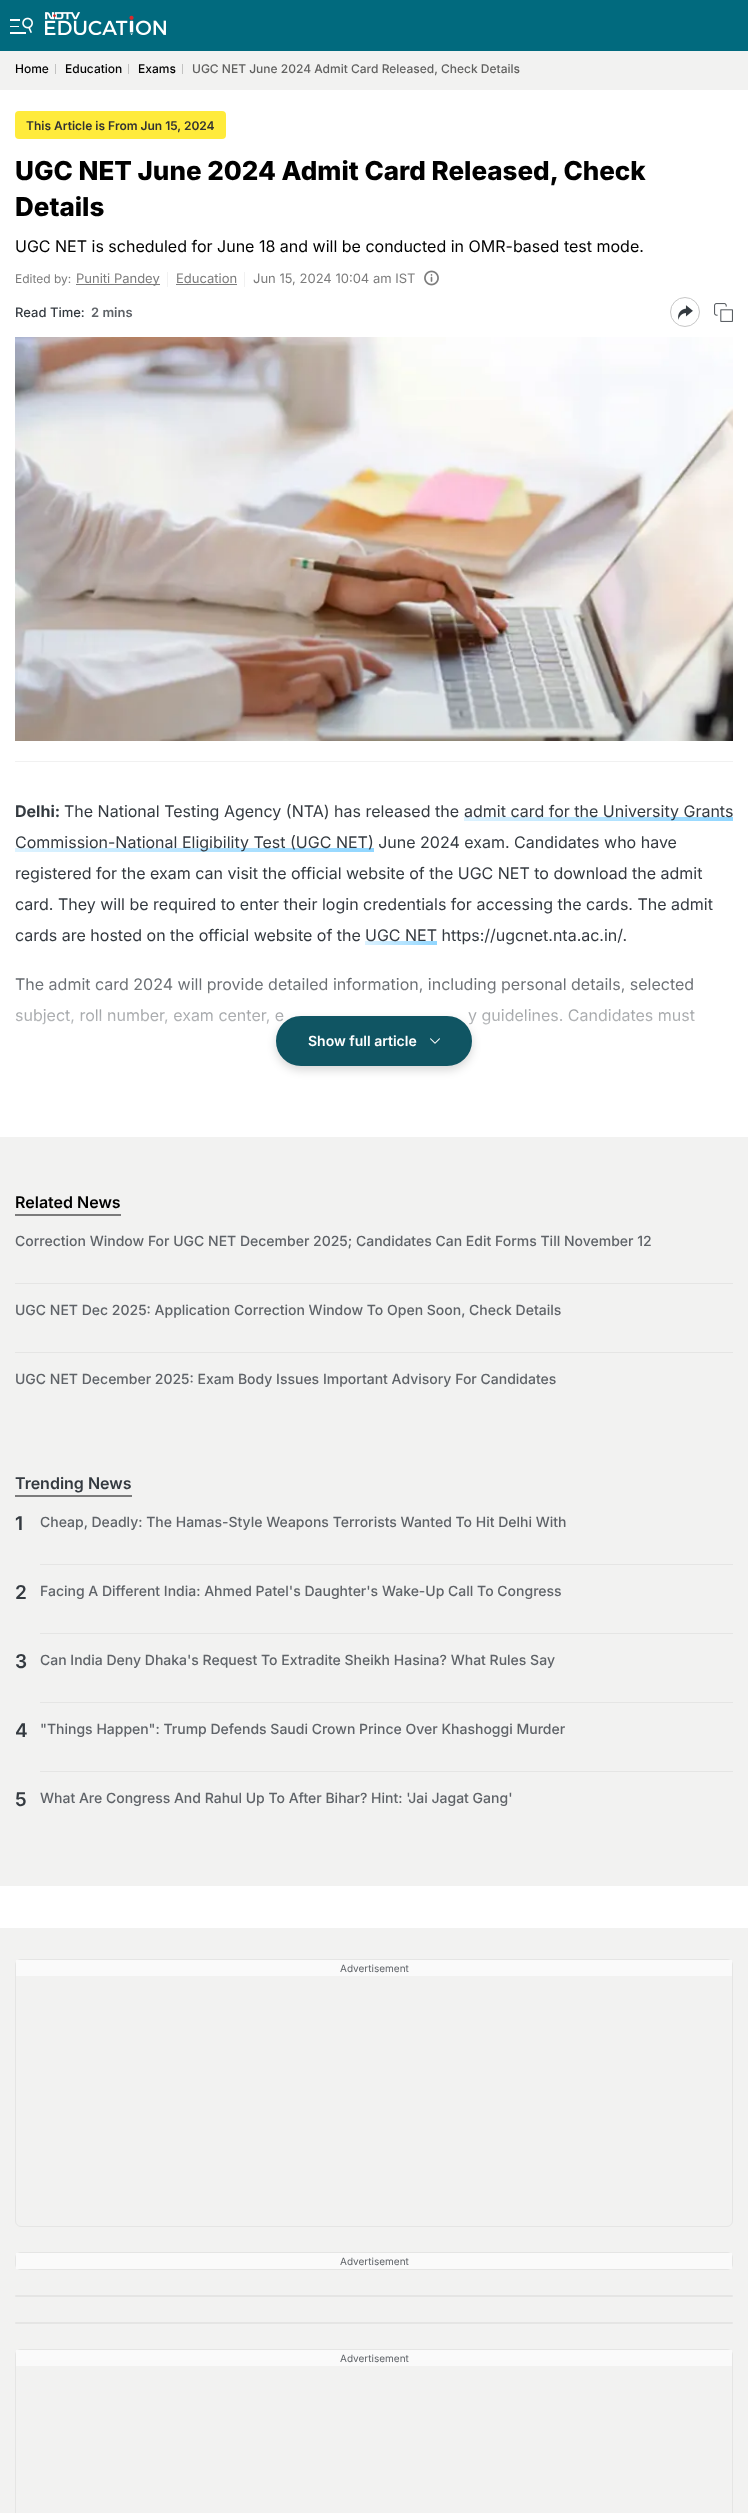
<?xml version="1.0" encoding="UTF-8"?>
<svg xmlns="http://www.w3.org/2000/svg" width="748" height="2513">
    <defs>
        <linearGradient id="g1" gradientUnits="userSpaceOnUse" x1="497" y1="760" x2="700" y2="878"><stop offset="0" stop-color="#DEF3FF"/><stop offset="1" stop-color="#90D6FF"/></linearGradient>
        <linearGradient id="g2" gradientUnits="userSpaceOnUse" x1="59" y1="772" x2="330" y2="928"><stop offset="0" stop-color="#DEF3FF"/><stop offset="1" stop-color="#90D6FF"/></linearGradient>
        <linearGradient id="g3" gradientUnits="userSpaceOnUse" x1="373" y1="927" x2="429" y2="959"><stop offset="0" stop-color="#DEF3FF"/><stop offset="1" stop-color="#90D6FF"/></linearGradient>
        <linearGradient id="g4" gradientUnits="userSpaceOnUse" x1="374" y1="966" x2="374" y2="1096"><stop offset="0" stop-color="#FFFFFF" stop-opacity="0.1"/><stop offset="0.4" stop-color="#FFFFFF" stop-opacity="0.6"/><stop offset="0.82" stop-color="#FFFFFF"/></linearGradient>
        <filter id="blur1" x="-50%" y="-200%" width="200%" height="500%"><feGaussianBlur stdDeviation="5"/></filter>
    </defs>
    <rect width="100%" height="100%" fill="#F2F2F1"/>
    <rect x="0" y="0" width="748" height="51" fill="#016A7E"/>
    <image x="10" y="17" width="23" height="17" href="img_01.png"/>
    <image x="45" y="12" width="121" height="23" href="img_02.png"/>
    <text x="15" y="73" font-family="Inter" font-size="12" font-weight="500" fill="#000000">Home</text>
    <rect x="55" y="64" width="1" height="10" fill="#C2C2C1"/>
    <text x="65" y="73" font-family="Inter" font-size="12" font-weight="500" fill="#000000">Education</text>
    <rect x="128" y="64" width="1" height="10" fill="#C2C2C1"/>
    <text x="138" y="73" font-family="Inter" font-size="12" font-weight="500" fill="#000000">Exams</text>
    <rect x="182" y="64" width="1" height="10" fill="#C2C2C1"/>
    <text x="192" y="73" font-family="Inter" font-size="12" font-weight="500" fill="#616160">UGC NET June 2024 Admit Card Released, Check Details</text>
    <rect x="0" y="90" width="748" height="1047" fill="#FFFFFF"/>
    <rect x="15" y="111" width="211" height="28" rx="4" fill="#FFEB3B"/>
    <text x="26" y="130" font-family="Inter" font-size="12" font-weight="600" fill="#323232">This Article is From Jun 15, 2024</text>
    <text font-family="Inter" font-size="26" font-weight="800" fill="#000000">
        <tspan x="15" y="180">UGC NET June 2024 Admit Card Released, Check</tspan>
        <tspan x="15" y="216">Details</tspan>
    </text>
    <text x="15" y="252" font-family="Inter" font-size="16" fill="#000000">UGC NET is scheduled for June 18 and will be conducted in OMR-based test mode.</text>
    <text x="15" y="283" font-family="Inter" font-size="12" fill="#7C7C7C">Edited by:</text>
    <rect x="76" y="284" width="84" height="1" fill="#7C7C7C"/>
    <text x="76" y="283" font-family="Inter" font-size="13" fill="#7C7C7C">Puniti Pandey</text>
    <rect x="167" y="272" width="1" height="15" fill="#F1F1F1"/>
    <text x="176" y="283" font-family="Inter" font-size="13" fill="#7C7C7C">Education</text>
    <rect x="176" y="284" width="61" height="1" fill="#7C7C7C"/>
    <rect x="244" y="272" width="1" height="15" fill="#F1F1F1"/>
    <text x="253" y="283" font-family="Inter" font-size="13" fill="#7C7C7C">Jun 15, 2024 10:04 am IST</text>
    <image x="424" y="270" width="15" height="16" href="img_03.png"/>
    <text x="15" y="317" font-family="Inter" font-size="13" font-weight="500" fill="#343A40">Read Time:</text>
    <text x="91" y="317" font-family="Inter" font-size="13" font-weight="600" fill="#5F6368">2 mins</text>
    <circle cx="685" cy="312" r="14.5" fill="none" stroke="#C7C7C7"/>
    <image x="678" y="305" width="15" height="15" href="img_04.png"/>
    <image x="714" y="303" width="19" height="19" href="img_05.png"/>
    <image x="15" y="337" width="718" height="404" href="img_06.png"/>
    <rect x="15" y="761" width="718" height="1" fill="#F1F1F1"/>
    <text x="64" y="817" font-family="Inter" font-size="16" fill="#343A40">The National Testing Agency (NTA) has released the</text>
    <rect x="464" y="817" width="269" height="4" fill="url(#g1)"/>
    <text x="464" y="817" font-family="Inter" font-size="16" fill="#343A40">admit card for the University Grants</text>
    <rect x="15" y="848" width="359" height="4" fill="url(#g2)"/>
    <text font-family="Inter" font-size="16" fill="#343A40">
        <tspan x="15" y="848">Commission-National Eligibility Test (UGC NET) June 2024 exam. Candidates who have</tspan>
        <tspan x="15" y="879">registered for the exam can visit the official website of the UGC NET to download the admit</tspan>
        <tspan x="15" y="910">card. They will be required to enter their login credentials for accessing the cards. The admit</tspan>
        <tspan x="15" y="941">cards are hosted on the official website of the</tspan>
    </text>
    <rect x="365" y="941" width="72" height="4" fill="url(#g3)"/>
    <text x="365" y="941" font-family="Inter" font-size="16" fill="#343A40">UGC NET https://ugcnet.nta.ac.in/.</text>
    <text x="15" y="817" font-family="Inter" font-size="16" font-weight="700" fill="#343A40">Delhi:</text>
    <text font-family="Inter" font-size="16" fill="#343A40">
        <tspan x="15" y="990">The admit card 2024 will provide detailed information, including personal details, selected</tspan>
        <tspan x="15" y="1021">subject, roll number, exam center, e</tspan>
    </text>
    <text x="468" y="1021" font-family="Inter" font-size="16" fill="#343A40">y guidelines. Candidates must</text>
    <rect x="15" y="977" width="680" height="48" fill="url(#g4)"/>
    <rect x="276" y="1020" width="196" height="50" rx="25" fill="#000000" fill-opacity="0.16" filter="url(#blur1)"/>
    <rect x="277" y="1017" width="194" height="48" rx="24" fill="#105563" stroke="#105563" stroke-width="2"/>
    <text x="308" y="1046" font-family="Inter" font-size="14" font-weight="600" fill="#FFFFFF">Show full article</text>
    <image x="430" y="1038" width="10" height="6" href="img_07.png"/>
    <rect x="15" y="1214" width="106" height="2" fill="#7C7C7C"/>
    <text x="15" y="1208" font-family="Inter" font-size="16" font-weight="600" fill="#000000">Related News</text>
    <rect x="15" y="1283" width="718" height="1" fill="#E5E5E4"/>
    <text x="15" y="1246" font-family="Inter" font-size="14" font-weight="500" fill="#5F6368">Correction Window For UGC NET December 2025; Candidates Can Edit Forms Till November 12</text>
    <rect x="15" y="1352" width="718" height="1" fill="#E5E5E4"/>
    <text x="15" y="1315" font-family="Inter" font-size="14" font-weight="500" fill="#5F6368">UGC NET Dec 2025: Application Correction Window To Open Soon, Check Details</text>
    <text x="15" y="1384" font-family="Inter" font-size="14" font-weight="500" fill="#5F6368">UGC NET December 2025: Exam Body Issues Important Advisory For Candidates</text>
    <rect x="15" y="1495" width="117" height="2" fill="#7C7C7C"/>
    <text x="15" y="1489" font-family="Inter" font-size="16" font-weight="600" fill="#343A40">Trending News</text>
    <rect x="40" y="1564" width="693" height="1" fill="#E5E5E4"/>
    <text x="15" y="1530" font-family="Inter" font-size="19" font-weight="600" fill="#343A40">1</text>
    <text x="40" y="1527" font-family="Inter" font-size="14" font-weight="500" fill="#5F6368">Cheap, Deadly: The Hamas-Style Weapons Terrorists Wanted To Hit Delhi With</text>
    <rect x="40" y="1633" width="693" height="1" fill="#E5E5E4"/>
    <text x="15" y="1599" font-family="Inter" font-size="19" font-weight="600" fill="#343A40">2</text>
    <text x="40" y="1596" font-family="Inter" font-size="14" font-weight="500" fill="#5F6368">Facing A Different India: Ahmed Patel's Daughter's Wake-Up Call To Congress</text>
    <rect x="40" y="1702" width="693" height="1" fill="#E5E5E4"/>
    <text x="15" y="1668" font-family="Inter" font-size="19" font-weight="600" fill="#343A40">3</text>
    <text x="40" y="1665" font-family="Inter" font-size="14" font-weight="500" fill="#5F6368">Can India Deny Dhaka's Request To Extradite Sheikh Hasina? What Rules Say</text>
    <rect x="40" y="1771" width="693" height="1" fill="#E5E5E4"/>
    <text x="15" y="1737" font-family="Inter" font-size="19" font-weight="600" fill="#343A40">4</text>
    <text x="40" y="1734" font-family="Inter" font-size="14" font-weight="500" fill="#5F6368">"Things Happen": Trump Defends Saudi Crown Prince Over Khashoggi Murder</text>
    <text x="15" y="1806" font-family="Inter" font-size="19" font-weight="600" fill="#343A40">5</text>
    <text x="40" y="1803" font-family="Inter" font-size="14" font-weight="500" fill="#5F6368">What Are Congress And Rahul Up To After Bihar? Hint: 'Jai Jagat Gang'</text>
    <rect x="0" y="1886" width="748" height="42" fill="#FFFFFF"/>
    <rect x="15.5" y="1959.5" width="717" height="267" rx="5.5" fill="none" stroke="#E5E5E4"/>
    <rect x="16" y="1960" width="716" height="16" fill="#FAFAFA"/>
    <text x="340" y="1972" font-family="Inter" font-size="10" fill="#5F6368">Advertisement</text>
    <rect x="15.5" y="2252.5" width="717" height="17" rx="5.5" fill="none" stroke="#E5E5E4"/>
    <rect x="16" y="2253" width="716" height="16" fill="#FAFAFA"/>
    <text x="340" y="2265" font-family="Inter" font-size="10" fill="#5F6368">Advertisement</text>
    <rect x="15" y="2295" width="718" height="2" rx="1" fill="#E5E5E4"/>
    <rect x="15" y="2322" width="718" height="2" rx="1" fill="#E5E5E4"/>
    <rect x="15.5" y="2349.5" width="717" height="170" rx="5.5" fill="none" stroke="#E5E5E4"/>
    <rect x="16" y="2350" width="716" height="16" fill="#FAFAFA"/>
    <text x="340" y="2362" font-family="Inter" font-size="10" fill="#5F6368">Advertisement</text>
</svg>
